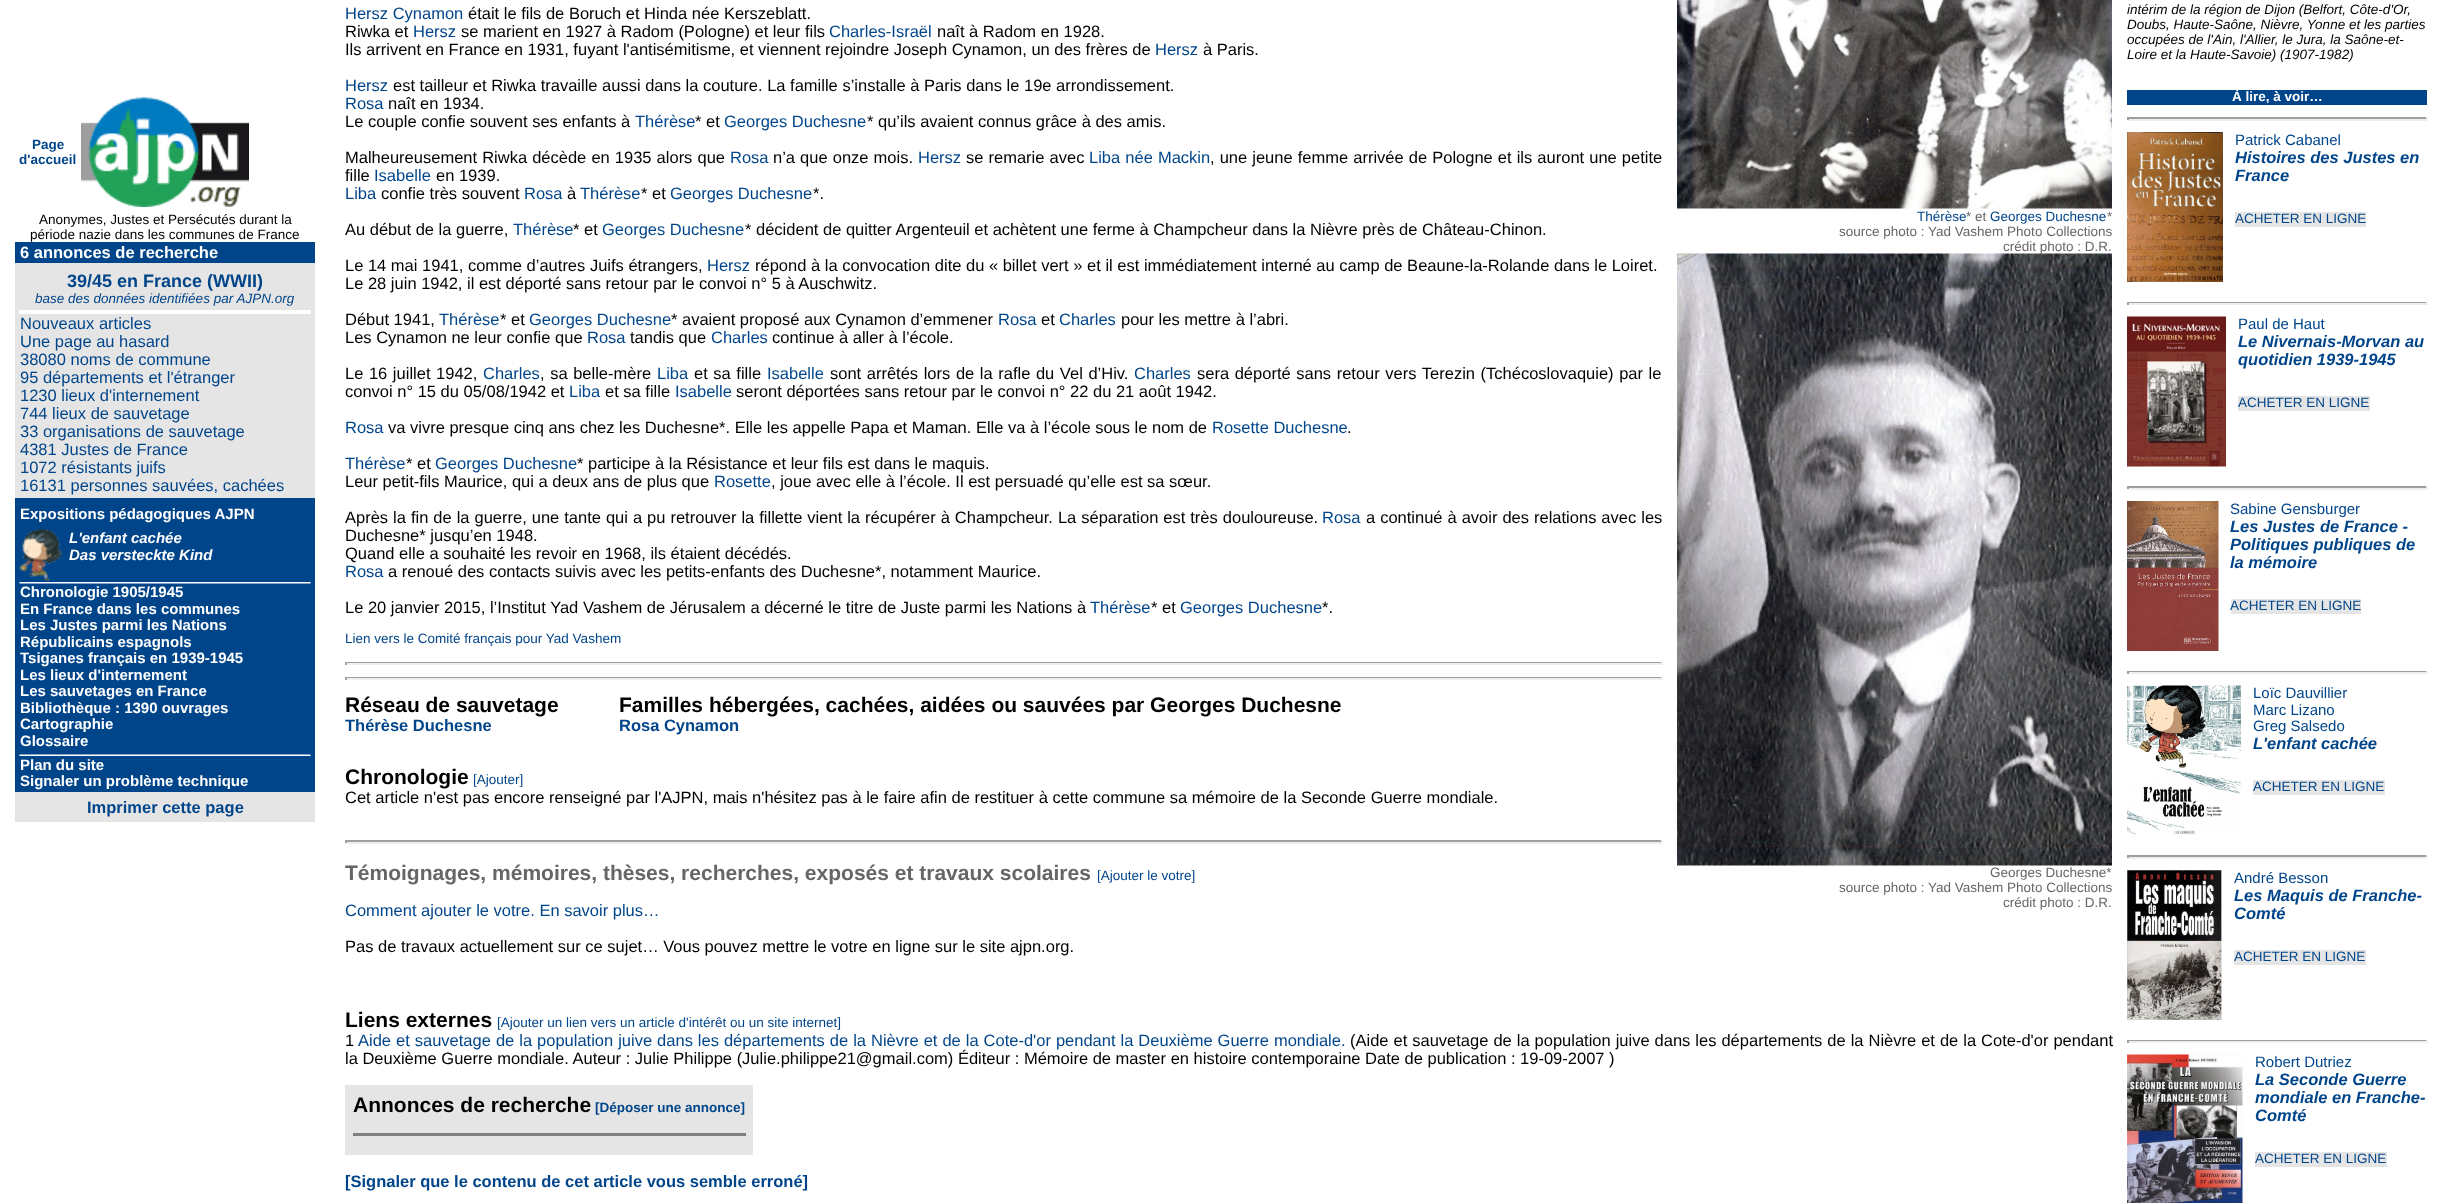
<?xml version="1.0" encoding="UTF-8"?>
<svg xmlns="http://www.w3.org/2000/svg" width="2441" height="1203">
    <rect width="100%" height="100%" fill="#FFFFFF"/>
    <rect x="15" y="242" width="300" height="550" fill="#00458A"/>
    <text x="32" y="149" font-family="Liberation Sans" font-size="13.5" font-weight="700" fill="#00458A">Page</text>
    <text x="19" y="164" font-family="Liberation Sans" font-size="13.5" font-weight="700" fill="#00458A">d'accueil</text>
    <image x="81" y="97" width="168" height="110" href="img_01.png"/>
    <text x="39" y="224" font-family="Liberation Sans" font-size="13.5" fill="#000000">Anonymes, Justes et Persécutés durant la</text>
    <text x="30" y="239" font-family="Liberation Sans" font-size="13.5" fill="#000000">période nazie dans les communes de France</text>
    <text x="20" y="258" font-family="Liberation Sans" font-size="16.5" font-weight="700" fill="#FFFFFF">6 annonces de recherche</text>
    <rect x="15" y="263" width="300" height="235" fill="#E5E5E5"/>
    <text x="67" y="287" font-family="Liberation Sans" font-size="18" font-weight="700" fill="#00458A">39/45 en France (WWII)</text>
    <text x="35" y="303" font-family="Liberation Sans" font-size="13.5" font-style="italic" fill="#00458A">base des données identifiées par AJPN.org</text>
    <rect x="19" y="310" width="292" height="4" fill="#FFFFFF"/>
    <text font-family="Liberation Sans" font-size="16.5" fill="#00458A">
        <tspan x="20" y="329">Nouveaux articles</tspan>
        <tspan x="20" y="347">Une page au hasard</tspan>
        <tspan x="20" y="365">38080 noms de commune</tspan>
        <tspan x="20" y="383">95 départements et l'étranger</tspan>
        <tspan x="20" y="401">1230 lieux d'internement</tspan>
        <tspan x="20" y="419">744 lieux de sauvetage</tspan>
        <tspan x="20" y="437">33 organisations de sauvetage</tspan>
        <tspan x="20" y="455">4381 Justes de France</tspan>
        <tspan x="20" y="473">1072 résistants juifs</tspan>
        <tspan x="20" y="491">16131 personnes sauvées, cachées</tspan>
    </text>
    <text x="20" y="519" font-family="Liberation Sans" font-size="15" font-weight="700" fill="#FFFFFF">Expositions pédagogiques AJPN</text>
    <image x="19" y="529" width="43" height="52" href="img_02.png"/>
    <text font-family="Liberation Sans" font-size="15" font-weight="700" font-style="italic" fill="#FFFFFF">
        <tspan x="69" y="543">L'enfant cachée</tspan>
        <tspan x="69" y="560">Das versteckte Kind</tspan>
    </text>
    <image x="19" y="582" width="292" height="2" href="img_03.png"/>
    <text font-family="Liberation Sans" font-size="15" font-weight="700" fill="#FFFFFF">
        <tspan x="20" y="597">Chronologie 1905/1945</tspan>
        <tspan x="20" y="614">En France dans les communes</tspan>
        <tspan x="20" y="630">Les Justes parmi les Nations</tspan>
        <tspan x="20" y="647">Républicains espagnols</tspan>
        <tspan x="20" y="663">Tsiganes français en 1939-1945</tspan>
        <tspan x="20" y="680">Les lieux d'internement</tspan>
        <tspan x="20" y="696">Les sauvetages en France</tspan>
        <tspan x="20" y="713">Bibliothèque : 1390 ouvrages</tspan>
        <tspan x="20" y="729">Cartographie</tspan>
        <tspan x="20" y="746">Glossaire</tspan>
    </text>
    <image x="19" y="754" width="292" height="2" href="img_04.png"/>
    <text font-family="Liberation Sans" font-size="15" font-weight="700" fill="#FFFFFF">
        <tspan x="20" y="770">Plan du site</tspan>
        <tspan x="20" y="786">Signaler un problème technique</tspan>
    </text>
    <rect x="15" y="792" width="300" height="30" fill="#E5E5E5"/>
    <text x="87" y="813" font-family="Liberation Sans" font-size="16.5" font-weight="700" fill="#00458A">Imprimer cette page</text>
    <text x="345" y="19" font-family="Liberation Sans" font-size="16.5" fill="#00458A">Hersz Cynamon</text>
    <text x="468" y="19" font-family="Liberation Sans" font-size="16.5" fill="#000000">était le fils de Boruch et Hinda née Kerszeblatt.</text>
    <text x="345" y="37" font-family="Liberation Sans" font-size="16.5" fill="#000000">Riwka et</text>
    <text x="413" y="37" font-family="Liberation Sans" font-size="16.5" fill="#00458A">Hersz</text>
    <text x="461" y="37" font-family="Liberation Sans" font-size="16.5" fill="#000000">se marient en 1927 à Radom (Pologne) et leur fils</text>
    <text x="829" y="37" font-family="Liberation Sans" font-size="16.5" fill="#00458A">Charles-Israël</text>
    <text x="937" y="37" font-family="Liberation Sans" font-size="16.5" fill="#000000">naît à Radom en 1928.</text>
    <text x="345" y="55" font-family="Liberation Sans" font-size="16.5" fill="#000000">Ils arrivent en France en 1931, fuyant l'antisémitisme, et viennent rejoindre Joseph Cynamon, un des frères de</text>
    <text x="1155" y="55" font-family="Liberation Sans" font-size="16.5" fill="#00458A">Hersz</text>
    <text x="1203" y="55" font-family="Liberation Sans" font-size="16.5" fill="#000000">à Paris.</text>
    <text x="345" y="91" font-family="Liberation Sans" font-size="16.5" fill="#00458A">Hersz</text>
    <text x="393" y="91" font-family="Liberation Sans" font-size="16.5" fill="#000000">est tailleur et Riwka travaille aussi dans la couture. La famille s’installe à Paris dans le 19e arrondissement.</text>
    <text x="345" y="109" font-family="Liberation Sans" font-size="16.5" fill="#00458A">Rosa</text>
    <text x="388" y="109" font-family="Liberation Sans" font-size="16.5" fill="#000000">naît en 1934.</text>
    <text x="345" y="127" font-family="Liberation Sans" font-size="16.5" fill="#000000">Le couple confie souvent ses enfants à</text>
    <text x="635" y="127" font-family="Liberation Sans" font-size="16.5" fill="#00458A">Thérèse</text>
    <text x="695" y="127" font-family="Liberation Sans" font-size="16.5" fill="#000000">* et</text>
    <text x="724" y="127" font-family="Liberation Sans" font-size="16.5" fill="#00458A">Georges Duchesne</text>
    <text x="867" y="127" font-family="Liberation Sans" font-size="16.5" fill="#000000">* qu’ils avaient connus grâce à des amis.</text>
    <text x="345" y="163" word-spacing="0.5" font-family="Liberation Sans" font-size="16.5" fill="#000000">Malheureusement Riwka décède en 1935 alors que</text>
    <text x="730" y="163" font-family="Liberation Sans" font-size="16.5" fill="#00458A">Rosa</text>
    <text x="773" y="163" word-spacing="0.5" font-family="Liberation Sans" font-size="16.5" fill="#000000">n’a que onze mois.</text>
    <text x="918" y="163" font-family="Liberation Sans" font-size="16.5" fill="#00458A">Hersz</text>
    <text x="966" y="163" word-spacing="0.5" font-family="Liberation Sans" font-size="16.5" fill="#000000">se remarie avec</text>
    <text x="1089" y="163" word-spacing="0.5" font-family="Liberation Sans" font-size="16.5" fill="#00458A">Liba née Mackin</text>
    <text x="1210" y="163" word-spacing="0.5" font-family="Liberation Sans" font-size="16.5" fill="#000000">, une jeune femme arrivée de Pologne et ils auront une petite</text>
    <text x="345" y="181" font-family="Liberation Sans" font-size="16.5" fill="#000000">fille</text>
    <text x="374" y="181" font-family="Liberation Sans" font-size="16.5" fill="#00458A">Isabelle</text>
    <text x="436" y="181" font-family="Liberation Sans" font-size="16.5" fill="#000000">en 1939.</text>
    <text x="345" y="199" font-family="Liberation Sans" font-size="16.5" fill="#00458A">Liba</text>
    <text x="381" y="199" font-family="Liberation Sans" font-size="16.5" fill="#000000">confie très souvent</text>
    <text x="524" y="199" font-family="Liberation Sans" font-size="16.5" fill="#00458A">Rosa</text>
    <text x="567" y="199" font-family="Liberation Sans" font-size="16.5" fill="#000000">à</text>
    <text x="580" y="199" font-family="Liberation Sans" font-size="16.5" fill="#00458A">Thérèse</text>
    <text x="641" y="199" font-family="Liberation Sans" font-size="16.5" fill="#000000">* et</text>
    <text x="670" y="199" font-family="Liberation Sans" font-size="16.5" fill="#00458A">Georges Duchesne</text>
    <text x="813" y="199" font-family="Liberation Sans" font-size="16.5" fill="#000000">*.</text>
    <text x="345" y="235" font-family="Liberation Sans" font-size="16.5" fill="#000000">Au début de la guerre,</text>
    <text x="513" y="235" font-family="Liberation Sans" font-size="16.5" fill="#00458A">Thérèse</text>
    <text x="573" y="235" font-family="Liberation Sans" font-size="16.5" fill="#000000">* et</text>
    <text x="602" y="235" font-family="Liberation Sans" font-size="16.5" fill="#00458A">Georges Duchesne</text>
    <text x="745" y="235" font-family="Liberation Sans" font-size="16.5" fill="#000000">* décident de quitter Argenteuil et achètent une ferme à Champcheur dans la Nièvre près de Château-Chinon.</text>
    <text x="345" y="271" font-family="Liberation Sans" font-size="16.5" fill="#000000">Le 14 mai 1941, comme d’autres Juifs étrangers,</text>
    <text x="707" y="271" font-family="Liberation Sans" font-size="16.5" fill="#00458A">Hersz</text>
    <text x="755" y="271" font-family="Liberation Sans" font-size="16.5" fill="#000000">répond à la convocation dite du « billet vert » et il est immédiatement interné au camp de Beaune-la-Rolande dans le Loiret.</text>
    <text x="345" y="289" font-family="Liberation Sans" font-size="16.5" fill="#000000">Le 28 juin 1942, il est déporté sans retour par le convoi n° 5 à Auschwitz.</text>
    <text x="345" y="325" font-family="Liberation Sans" font-size="16.5" fill="#000000">Début 1941,</text>
    <text x="439" y="325" font-family="Liberation Sans" font-size="16.5" fill="#00458A">Thérèse</text>
    <text x="500" y="325" font-family="Liberation Sans" font-size="16.5" fill="#000000">* et</text>
    <text x="529" y="325" font-family="Liberation Sans" font-size="16.5" fill="#00458A">Georges Duchesne</text>
    <text x="671" y="325" font-family="Liberation Sans" font-size="16.5" fill="#000000">* avaient proposé aux Cynamon d’emmener</text>
    <text x="998" y="325" font-family="Liberation Sans" font-size="16.5" fill="#00458A">Rosa</text>
    <text x="1041" y="325" font-family="Liberation Sans" font-size="16.5" fill="#000000">et</text>
    <text x="1059" y="325" font-family="Liberation Sans" font-size="16.5" fill="#00458A">Charles</text>
    <text x="1121" y="325" font-family="Liberation Sans" font-size="16.5" fill="#000000">pour les mettre à l’abri.</text>
    <text x="345" y="343" font-family="Liberation Sans" font-size="16.5" fill="#000000">Les Cynamon ne leur confie que</text>
    <text x="587" y="343" font-family="Liberation Sans" font-size="16.5" fill="#00458A">Rosa</text>
    <text x="630" y="343" font-family="Liberation Sans" font-size="16.5" fill="#000000">tandis que</text>
    <text x="711" y="343" font-family="Liberation Sans" font-size="16.5" fill="#00458A">Charles</text>
    <text x="772" y="343" font-family="Liberation Sans" font-size="16.5" fill="#000000">continue à aller à l’école.</text>
    <text x="345" y="379" word-spacing="1" font-family="Liberation Sans" font-size="16.5" fill="#000000">Le 16 juillet 1942,</text>
    <text x="483" y="379" font-family="Liberation Sans" font-size="16.5" fill="#00458A">Charles</text>
    <text x="540" y="379" word-spacing="1" font-family="Liberation Sans" font-size="16.5" fill="#000000">, sa belle-mère</text>
    <text x="657" y="379" font-family="Liberation Sans" font-size="16.5" fill="#00458A">Liba</text>
    <text x="694" y="379" word-spacing="1" font-family="Liberation Sans" font-size="16.5" fill="#000000">et sa fille</text>
    <text x="767" y="379" font-family="Liberation Sans" font-size="16.5" fill="#00458A">Isabelle</text>
    <text x="830" y="379" word-spacing="1" font-family="Liberation Sans" font-size="16.5" fill="#000000">sont arrêtés lors de la rafle du Vel d’Hiv.</text>
    <text x="1134" y="379" font-family="Liberation Sans" font-size="16.5" fill="#00458A">Charles</text>
    <text x="1197" y="379" word-spacing="1" font-family="Liberation Sans" font-size="16.5" fill="#000000">sera déporté sans retour vers Terezin (Tchécoslovaquie) par le</text>
    <text x="345" y="397" font-family="Liberation Sans" font-size="16.5" fill="#000000">convoi n° 15 du 05/08/1942 et</text>
    <text x="569" y="397" font-family="Liberation Sans" font-size="16.5" fill="#00458A">Liba</text>
    <text x="605" y="397" font-family="Liberation Sans" font-size="16.5" fill="#000000">et sa fille</text>
    <text x="675" y="397" font-family="Liberation Sans" font-size="16.5" fill="#00458A">Isabelle</text>
    <text x="736" y="397" font-family="Liberation Sans" font-size="16.5" fill="#000000">seront déportées sans retour par le convoi n° 22 du 21 août 1942.</text>
    <text x="345" y="433" font-family="Liberation Sans" font-size="16.5" fill="#00458A">Rosa</text>
    <text x="388" y="433" font-family="Liberation Sans" font-size="16.5" fill="#000000">va vivre presque cinq ans chez les Duchesne*. Elle les appelle Papa et Maman. Elle va à l’école sous le nom de</text>
    <text x="1212" y="433" font-family="Liberation Sans" font-size="16.5" fill="#00458A">Rosette Duchesne</text>
    <text x="1347" y="433" font-family="Liberation Sans" font-size="16.5" fill="#000000">.</text>
    <text x="345" y="469" font-family="Liberation Sans" font-size="16.5" fill="#00458A">Thérèse</text>
    <text x="406" y="469" font-family="Liberation Sans" font-size="16.5" fill="#000000">* et</text>
    <text x="435" y="469" font-family="Liberation Sans" font-size="16.5" fill="#00458A">Georges Duchesne</text>
    <text x="577" y="469" font-family="Liberation Sans" font-size="16.5" fill="#000000">* participe à la Résistance et leur fils est dans le maquis.</text>
    <text x="345" y="487" font-family="Liberation Sans" font-size="16.5" fill="#000000">Leur petit-fils Maurice, qui a deux ans de plus que</text>
    <text x="714" y="487" font-family="Liberation Sans" font-size="16.5" fill="#00458A">Rosette</text>
    <text x="771" y="487" font-family="Liberation Sans" font-size="16.5" fill="#000000">, joue avec elle à l’école. Il est persuadé qu’elle est sa sœur.</text>
    <text x="345" y="523" word-spacing="0.4" font-family="Liberation Sans" font-size="16.5" fill="#000000">Après la fin de la guerre, une tante qui a pu retrouver la fillette vient la récupérer à Champcheur. La séparation est très douloureuse.</text>
    <text x="1322" y="523" font-family="Liberation Sans" font-size="16.5" fill="#00458A">Rosa</text>
    <text x="1366" y="523" word-spacing="0.4" font-family="Liberation Sans" font-size="16.5" fill="#000000">a continué à avoir des relations avec les</text>
    <text font-family="Liberation Sans" font-size="16.5" fill="#000000">
        <tspan x="345" y="541">Duchesne* jusqu’en 1948.</tspan>
        <tspan x="345" y="559">Quand elle a souhaité les revoir en 1968, ils étaient décédés.</tspan>
    </text>
    <text x="345" y="577" font-family="Liberation Sans" font-size="16.5" fill="#00458A">Rosa</text>
    <text x="388" y="577" font-family="Liberation Sans" font-size="16.5" fill="#000000">a renoué des contacts suivis avec les petits-enfants des Duchesne*, notamment Maurice.</text>
    <text x="345" y="613" font-family="Liberation Sans" font-size="16.5" fill="#000000">Le 20 janvier 2015, l’Institut Yad Vashem de Jérusalem a décerné le titre de Juste parmi les Nations à</text>
    <text x="1090" y="613" font-family="Liberation Sans" font-size="16.5" fill="#00458A">Thérèse</text>
    <text x="1151" y="613" font-family="Liberation Sans" font-size="16.5" fill="#000000">* et</text>
    <text x="1180" y="613" font-family="Liberation Sans" font-size="16.5" fill="#00458A">Georges Duchesne</text>
    <text x="1322" y="613" font-family="Liberation Sans" font-size="16.5" fill="#000000">*.</text>
    <image x="1677" y="0" width="435" height="209" href="img_05.png"/>
    <text x="1917" y="221" font-family="Liberation Sans" font-size="13.5" fill="#00458A">Thérèse</text>
    <text x="1966" y="221" font-family="Liberation Sans" font-size="13.5" fill="#666666">* et</text>
    <text x="1990" y="221" font-family="Liberation Sans" font-size="13.5" fill="#00458A">Georges Duchesne</text>
    <text x="2107" y="221" font-family="Liberation Sans" font-size="13.5" fill="#666666">*</text>
    <text x="1839" y="236" font-family="Liberation Sans" font-size="13.5" fill="#666666">source photo : Yad Vashem Photo Collections</text>
    <text x="2003" y="251" font-family="Liberation Sans" font-size="13.5" fill="#666666">crédit photo : D.R.</text>
    <image x="1677" y="253" width="435" height="613" href="img_06.png"/>
    <text x="1990" y="877" font-family="Liberation Sans" font-size="13.5" fill="#666666">Georges Duchesne*</text>
    <text x="1839" y="892" font-family="Liberation Sans" font-size="13.5" fill="#666666">source photo : Yad Vashem Photo Collections</text>
    <text x="2003" y="907" font-family="Liberation Sans" font-size="13.5" fill="#666666">crédit photo : D.R.</text>
    <text x="345" y="643" font-family="Liberation Sans" font-size="13.5" fill="#00458A">Lien vers le Comité français pour Yad Vashem</text>
    <rect x="345" y="662" width="1317" height="1" fill="#9F9F9F"/>
    <rect x="1661" y="662" width="2" height="3" fill="#EEEEEE"/>
    <rect x="345" y="663" width="1317" height="2" fill="#EEEEEE"/>
    <rect x="345" y="662" width="2" height="3" fill="#9F9F9F"/>
    <rect x="345" y="677" width="1317" height="1" fill="#9F9F9F"/>
    <rect x="1661" y="677" width="2" height="3" fill="#EEEEEE"/>
    <rect x="345" y="678" width="1317" height="2" fill="#EEEEEE"/>
    <rect x="345" y="677" width="2" height="3" fill="#9F9F9F"/>
    <text x="345" y="712" font-family="Liberation Sans" font-size="21" font-weight="700" fill="#000000">Réseau de sauvetage</text>
    <text x="345" y="731" font-family="Liberation Sans" font-size="16.5" font-weight="700" fill="#00458A">Thérèse Duchesne</text>
    <text x="619" y="712" font-family="Liberation Sans" font-size="21" font-weight="700" fill="#000000">Familles hébergées, cachées, aidées ou sauvées par Georges Duchesne</text>
    <text x="619" y="731" font-family="Liberation Sans" font-size="16.5" font-weight="700" fill="#00458A">Rosa Cynamon</text>
    <text x="345" y="784" font-family="Liberation Sans" font-size="21" font-weight="700" fill="#000000">Chronologie</text>
    <text x="473" y="784" font-family="Liberation Sans" font-size="13.5" fill="#00458A">[Ajouter]</text>
    <text x="345" y="803" font-family="Liberation Sans" font-size="16.5" fill="#000000">Cet article n'est pas encore renseigné par l'AJPN, mais n'hésitez pas à le faire afin de restituer à cette commune sa mémoire de la Seconde Guerre mondiale.</text>
    <rect x="345" y="840" width="1317" height="2" fill="#9F9F9F"/>
    <rect x="1661" y="840" width="2" height="3" fill="#EEEEEE"/>
    <rect x="345" y="842" width="1317" height="2" fill="#EEEEEE"/>
    <rect x="345" y="840" width="2" height="3" fill="#9F9F9F"/>
    <text x="345" y="880" font-family="Liberation Sans" font-size="21" font-weight="700" fill="#666666">Témoignages, mémoires, thèses, recherches, exposés et travaux scolaires</text>
    <text x="1097" y="880" font-family="Liberation Sans" font-size="13.5" fill="#00458A">[Ajouter le votre]</text>
    <text x="345" y="916" font-family="Liberation Sans" font-size="16.5" fill="#00458A">Comment ajouter le votre. En savoir plus…</text>
    <text x="345" y="952" font-family="Liberation Sans" font-size="16.5" fill="#000000">Pas de travaux actuellement sur ce sujet… Vous pouvez mettre le votre en ligne sur le site ajpn.org.</text>
    <text x="345" y="1027" font-family="Liberation Sans" font-size="21" font-weight="700" fill="#000000">Liens externes</text>
    <text x="497" y="1027" font-family="Liberation Sans" font-size="13.5" fill="#00458A">[Ajouter un lien vers un article d'intérêt ou un site internet]</text>
    <text x="345" y="1046" font-family="Liberation Sans" font-size="16.5" fill="#000000">1</text>
    <text x="358" y="1046" word-spacing="0.4" font-family="Liberation Sans" font-size="16.5" fill="#00458A">Aide et sauvetage de la population juive dans les départements de la Nièvre et de la Cote-d'or pendant la Deuxième Guerre mondiale.</text>
    <text x="1350" y="1046" word-spacing="0.4" font-family="Liberation Sans" font-size="16.5" fill="#000000">(Aide et sauvetage de la population juive dans les départements de la Nièvre et de la Cote-d'or pendant</text>
    <text x="345" y="1064" font-family="Liberation Sans" font-size="16.5" fill="#000000">la Deuxième Guerre mondiale. Auteur : Julie Philippe (Julie.philippe21@gmail.com) Éditeur : Mémoire de master en histoire contemporaine Date de publication : 19-09-2007 )</text>
    <rect x="345" y="1085" width="408" height="70" fill="#E5E5E5"/>
    <text x="353" y="1112" font-family="Liberation Sans" font-size="21" font-weight="700" fill="#000000">Annonces de recherche</text>
    <text x="595" y="1112" font-family="Liberation Sans" font-size="13.5" font-weight="700" fill="#00458A">[Déposer une annonce]</text>
    <rect x="353" y="1133" width="393" height="3" fill="#808080"/>
    <text x="345" y="1187" font-family="Liberation Sans" font-size="16.5" font-weight="700" fill="#00458A">[Signaler que le contenu de cet article vous semble erroné]</text>
    <text font-family="Liberation Sans" font-size="13.5" font-style="italic" fill="#000000">
        <tspan x="2127" y="14">intérim de la région de Dijon (Belfort, Côte-d'Or,</tspan>
        <tspan x="2127" y="29">Doubs, Haute-Saône, Nièvre, Yonne et les parties</tspan>
        <tspan x="2127" y="44">occupées de l'Ain, l'Allier, le Jura, la Saône-et-</tspan>
        <tspan x="2127" y="59">Loire et la Haute-Savoie) (1907-1982)</tspan>
    </text>
    <rect x="2127" y="90" width="300" height="15" fill="#00458A"/>
    <text x="2232" y="101" font-family="Liberation Sans" font-size="13.5" font-weight="700" fill="#FFFFFF">À lire, à voir…</text>
    <rect x="2127" y="117" width="300" height="2" fill="#9F9F9F"/>
    <rect x="2426" y="117" width="2" height="3" fill="#EEEEEE"/>
    <rect x="2127" y="119" width="300" height="2" fill="#EEEEEE"/>
    <rect x="2127" y="117" width="2" height="3" fill="#9F9F9F"/>
    <image x="2127" y="132" width="96" height="150" href="img_07.png"/>
    <text x="2235" y="145" font-family="Liberation Sans" font-size="15" fill="#00458A">Patrick Cabanel</text>
    <text font-family="Liberation Sans" font-size="16.5" font-weight="700" font-style="italic" fill="#00458A">
        <tspan x="2235" y="163">Histoires des Justes en</tspan>
        <tspan x="2235" y="181">France</tspan>
    </text>
    <rect x="2235" y="212" width="131" height="15" fill="#E5E5E5"/>
    <text x="2235" y="223" font-family="Liberation Sans" font-size="13.5" fill="#00458A">ACHETER EN LIGNE</text>
    <rect x="2127" y="302" width="300" height="1" fill="#9F9F9F"/>
    <rect x="2426" y="302" width="2" height="3" fill="#EEEEEE"/>
    <rect x="2127" y="303" width="300" height="2" fill="#EEEEEE"/>
    <rect x="2127" y="302" width="2" height="3" fill="#9F9F9F"/>
    <image x="2127" y="316" width="99" height="151" href="img_08.png"/>
    <text x="2238" y="329" font-family="Liberation Sans" font-size="15" fill="#00458A">Paul de Haut</text>
    <text font-family="Liberation Sans" font-size="16.5" font-weight="700" font-style="italic" fill="#00458A">
        <tspan x="2238" y="347">Le Nivernais-Morvan au</tspan>
        <tspan x="2238" y="365">quotidien 1939-1945</tspan>
    </text>
    <rect x="2238" y="396" width="132" height="15" fill="#E5E5E5"/>
    <text x="2238" y="407" font-family="Liberation Sans" font-size="13.5" fill="#00458A">ACHETER EN LIGNE</text>
    <rect x="2127" y="486" width="300" height="2" fill="#9F9F9F"/>
    <rect x="2426" y="486" width="2" height="3" fill="#EEEEEE"/>
    <rect x="2127" y="488" width="300" height="2" fill="#EEEEEE"/>
    <rect x="2127" y="486" width="2" height="3" fill="#9F9F9F"/>
    <image x="2127" y="501" width="92" height="150" href="img_09.png"/>
    <text x="2230" y="514" font-family="Liberation Sans" font-size="15" fill="#00458A">Sabine Gensburger</text>
    <text font-family="Liberation Sans" font-size="16.5" font-weight="700" font-style="italic" fill="#00458A">
        <tspan x="2230" y="532">Les Justes de France -</tspan>
        <tspan x="2230" y="550">Politiques publiques de</tspan>
        <tspan x="2230" y="568">la mémoire</tspan>
    </text>
    <rect x="2231" y="599" width="130" height="15" fill="#E5E5E5"/>
    <text x="2230" y="610" font-family="Liberation Sans" font-size="13.5" fill="#00458A">ACHETER EN LIGNE</text>
    <rect x="2127" y="671" width="300" height="1" fill="#9F9F9F"/>
    <rect x="2426" y="671" width="2" height="3" fill="#EEEEEE"/>
    <rect x="2127" y="672" width="300" height="2" fill="#EEEEEE"/>
    <rect x="2127" y="671" width="2" height="3" fill="#9F9F9F"/>
    <image x="2127" y="685" width="114" height="150" href="img_10.png"/>
    <text font-family="Liberation Sans" font-size="15" fill="#00458A">
        <tspan x="2253" y="698">Loïc Dauvillier</tspan>
        <tspan x="2253" y="715">Marc Lizano</tspan>
        <tspan x="2253" y="731">Greg Salsedo</tspan>
    </text>
    <text x="2253" y="749" font-family="Liberation Sans" font-size="16.5" font-weight="700" font-style="italic" fill="#00458A">L'enfant cachée</text>
    <rect x="2253" y="780" width="132" height="15" fill="#E5E5E5"/>
    <text x="2253" y="791" font-family="Liberation Sans" font-size="13.5" fill="#00458A">ACHETER EN LIGNE</text>
    <rect x="2127" y="855" width="300" height="2" fill="#9F9F9F"/>
    <rect x="2426" y="855" width="2" height="3" fill="#EEEEEE"/>
    <rect x="2127" y="857" width="300" height="2" fill="#EEEEEE"/>
    <rect x="2127" y="855" width="2" height="3" fill="#9F9F9F"/>
    <image x="2127" y="870" width="95" height="150" href="img_11.png"/>
    <text x="2234" y="883" font-family="Liberation Sans" font-size="15" fill="#00458A">André Besson</text>
    <text font-family="Liberation Sans" font-size="16.5" font-weight="700" font-style="italic" fill="#00458A">
        <tspan x="2234" y="901">Les Maquis de Franche-</tspan>
        <tspan x="2234" y="919">Comté</tspan>
    </text>
    <rect x="2234" y="950" width="132" height="15" fill="#E5E5E5"/>
    <text x="2234" y="961" font-family="Liberation Sans" font-size="13.5" fill="#00458A">ACHETER EN LIGNE</text>
    <rect x="2127" y="1040" width="300" height="1" fill="#9F9F9F"/>
    <rect x="2426" y="1040" width="2" height="3" fill="#EEEEEE"/>
    <rect x="2127" y="1041" width="300" height="2" fill="#EEEEEE"/>
    <rect x="2127" y="1040" width="2" height="3" fill="#9F9F9F"/>
    <image x="2127" y="1054" width="116" height="149" href="img_12.png"/>
    <text x="2255" y="1067" font-family="Liberation Sans" font-size="15" fill="#00458A">Robert Dutriez</text>
    <text font-family="Liberation Sans" font-size="16.5" font-weight="700" font-style="italic" fill="#00458A">
        <tspan x="2255" y="1085">La Seconde Guerre</tspan>
        <tspan x="2255" y="1103">mondiale en Franche-</tspan>
        <tspan x="2255" y="1121">Comté</tspan>
    </text>
    <rect x="2255" y="1152" width="132" height="15" fill="#E5E5E5"/>
    <text x="2255" y="1163" font-family="Liberation Sans" font-size="13.5" fill="#00458A">ACHETER EN LIGNE</text>
</svg>
